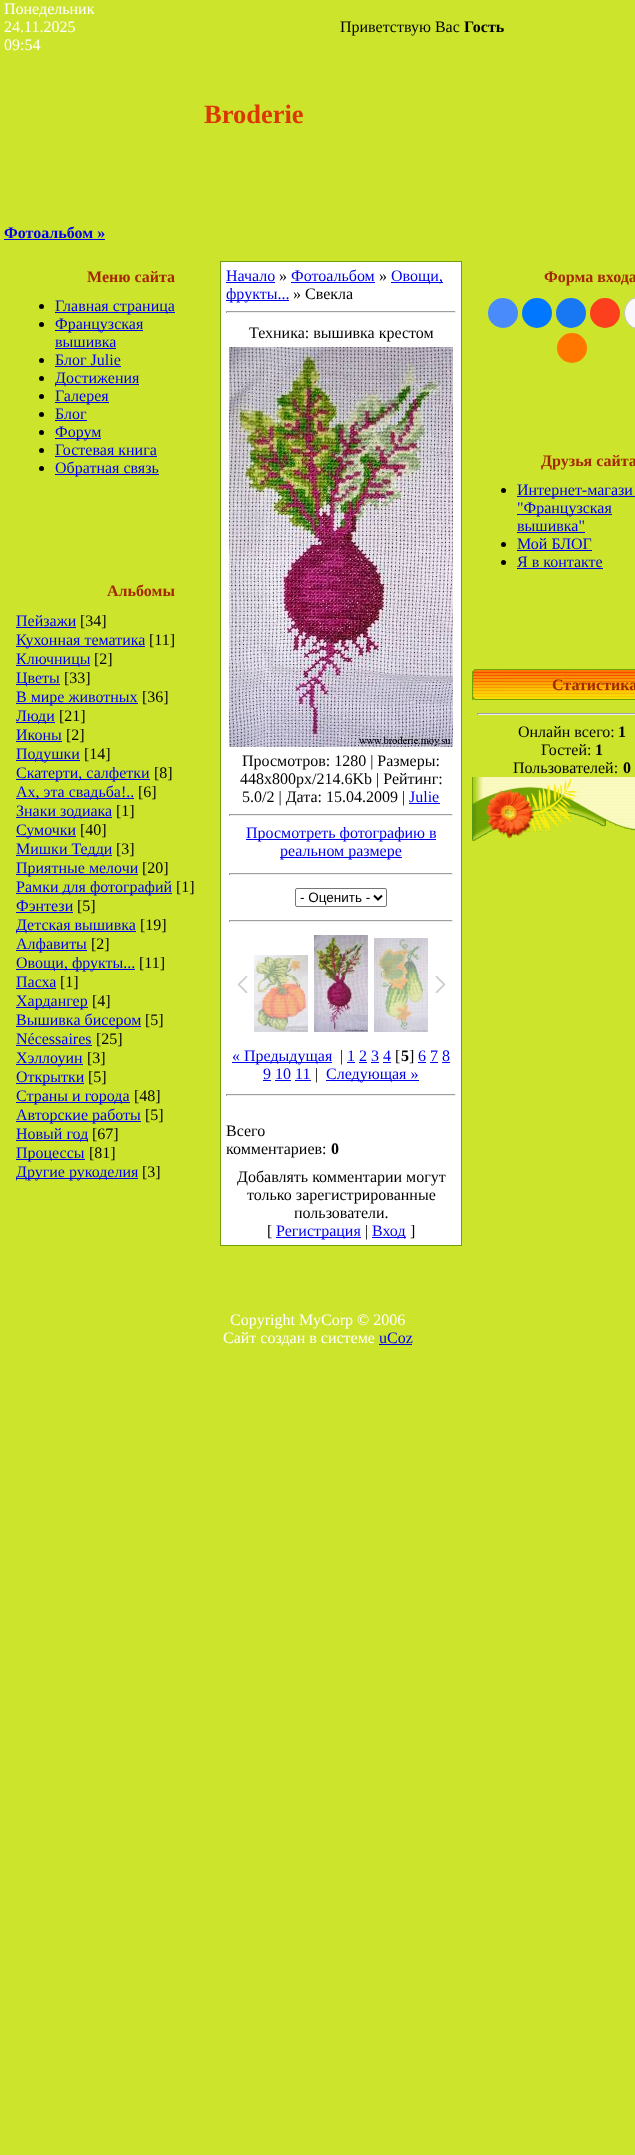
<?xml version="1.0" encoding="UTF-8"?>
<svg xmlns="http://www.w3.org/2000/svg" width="635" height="2155">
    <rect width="100%" height="100%" fill="#CCE42C"/>
    <text font-family="Liberation Serif" font-size="16" fill="#FFFFFF">
        <tspan x="4" y="14">Понедельник</tspan>
        <tspan x="4" y="32">24.11.2025</tspan>
        <tspan x="4" y="50">09:54</tspan>
    </text>
    <text x="340" y="32" font-family="Liberation Serif" font-size="16" fill="#000000">Приветствую Вас</text>
    <text x="464" y="32" font-family="Liberation Serif" font-size="16" font-weight="700" fill="#000000">Гость</text>
    <text x="204" y="123" font-family="Liberation Serif" font-size="26.5" font-weight="700" fill="#DC3700">Broderie</text>
    <text x="4" y="238" font-family="Liberation Serif" font-size="16" font-weight="700" fill="#0000EE">Фотоальбом »</text>
    <rect x="4" y="239" width="101" height="1" fill="#0000EE"/>
    <text x="87" y="282" font-family="Liberation Serif" font-size="16" font-weight="700" fill="#A42900">Меню сайта</text>
    <circle cx="41.5" cy="306.5" r="2.5" fill="#000000"/>
    <rect x="55" y="312" width="120" height="1" fill="#0000EE"/>
    <text x="55" y="311" font-family="Liberation Serif" font-size="16" fill="#0000EE">Главная страница</text>
    <circle cx="41.5" cy="324.5" r="2.5" fill="#000000"/>
    <rect x="55" y="330" width="88" height="1" fill="#0000EE"/>
    <text font-family="Liberation Serif" font-size="16" fill="#0000EE">
        <tspan x="55" y="329">Французская</tspan>
        <tspan x="55" y="347">вышивка</tspan>
    </text>
    <rect x="55" y="348" width="61" height="1" fill="#0000EE"/>
    <circle cx="41.5" cy="360.5" r="2.5" fill="#000000"/>
    <text x="55" y="365" font-family="Liberation Serif" font-size="16" fill="#0000EE">Блог Julie</text>
    <rect x="55" y="366" width="66" height="1" fill="#0000EE"/>
    <circle cx="41.5" cy="378.5" r="2.5" fill="#000000"/>
    <rect x="55" y="384" width="84" height="1" fill="#0000EE"/>
    <text x="55" y="383" font-family="Liberation Serif" font-size="16" fill="#0000EE">Достижения</text>
    <circle cx="41.5" cy="396.5" r="2.5" fill="#000000"/>
    <rect x="55" y="402" width="54" height="1" fill="#0000EE"/>
    <text x="55" y="401" font-family="Liberation Serif" font-size="16" fill="#0000EE">Галерея</text>
    <circle cx="41.5" cy="414.5" r="2.5" fill="#000000"/>
    <text x="55" y="419" font-family="Liberation Serif" font-size="16" fill="#0000EE">Блог</text>
    <rect x="55" y="420" width="32" height="1" fill="#0000EE"/>
    <circle cx="41.5" cy="432.5" r="2.5" fill="#000000"/>
    <rect x="55" y="438" width="46" height="1" fill="#0000EE"/>
    <text x="55" y="437" font-family="Liberation Serif" font-size="16" fill="#0000EE">Форум</text>
    <circle cx="41.5" cy="450.5" r="2.5" fill="#000000"/>
    <text x="55" y="455" font-family="Liberation Serif" font-size="16" fill="#0000EE">Гостевая книга</text>
    <rect x="55" y="456" width="102" height="1" fill="#0000EE"/>
    <circle cx="41.5" cy="468.5" r="2.5" fill="#000000"/>
    <rect x="55" y="474" width="104" height="1" fill="#0000EE"/>
    <text x="55" y="473" font-family="Liberation Serif" font-size="16" fill="#0000EE">Обратная связь</text>
    <text x="107" y="596" font-family="Liberation Serif" font-size="16" font-weight="700" fill="#A42900">Альбомы</text>
    <text x="16" y="626" font-family="Liberation Serif" font-size="16" fill="#0000EE">Пейзажи</text>
    <rect x="16" y="627" width="60" height="1" fill="#0000EE"/>
    <text x="80" y="626" font-family="Liberation Serif" font-size="16" fill="#000000">[34]</text>
    <rect x="16" y="646" width="129" height="1" fill="#0000EE"/>
    <text x="16" y="645" font-family="Liberation Serif" font-size="16" fill="#0000EE">Кухонная тематика</text>
    <text x="149" y="645" font-family="Liberation Serif" font-size="16" fill="#000000">[11]</text>
    <rect x="16" y="665" width="74" height="1" fill="#0000EE"/>
    <text x="16" y="664" font-family="Liberation Serif" font-size="16" fill="#0000EE">Ключницы</text>
    <text x="94" y="664" font-family="Liberation Serif" font-size="16" fill="#000000">[2]</text>
    <rect x="16" y="684" width="44" height="1" fill="#0000EE"/>
    <text x="16" y="683" font-family="Liberation Serif" font-size="16" fill="#0000EE">Цветы</text>
    <text x="64" y="683" font-family="Liberation Serif" font-size="16" fill="#000000">[33]</text>
    <rect x="16" y="703" width="122" height="1" fill="#0000EE"/>
    <text x="16" y="702" font-family="Liberation Serif" font-size="16" fill="#0000EE">В мире животных</text>
    <text x="142" y="702" font-family="Liberation Serif" font-size="16" fill="#000000">[36]</text>
    <rect x="16" y="722" width="39" height="1" fill="#0000EE"/>
    <text x="16" y="721" font-family="Liberation Serif" font-size="16" fill="#0000EE">Люди</text>
    <text x="59" y="721" font-family="Liberation Serif" font-size="16" fill="#000000">[21]</text>
    <text x="16" y="740" font-family="Liberation Serif" font-size="16" fill="#0000EE">Иконы</text>
    <rect x="16" y="741" width="46" height="1" fill="#0000EE"/>
    <text x="66" y="740" font-family="Liberation Serif" font-size="16" fill="#000000">[2]</text>
    <rect x="16" y="760" width="64" height="1" fill="#0000EE"/>
    <text x="16" y="759" font-family="Liberation Serif" font-size="16" fill="#0000EE">Подушки</text>
    <text x="84" y="759" font-family="Liberation Serif" font-size="16" fill="#000000">[14]</text>
    <rect x="16" y="779" width="134" height="1" fill="#0000EE"/>
    <text x="16" y="778" font-family="Liberation Serif" font-size="16" fill="#0000EE">Скатерти, салфетки</text>
    <text x="154" y="778" font-family="Liberation Serif" font-size="16" fill="#000000">[8]</text>
    <rect x="16" y="798" width="118" height="1" fill="#0000EE"/>
    <text x="16" y="797" font-family="Liberation Serif" font-size="16" fill="#0000EE">Ах, эта свадьба!..</text>
    <text x="138" y="797" font-family="Liberation Serif" font-size="16" fill="#000000">[6]</text>
    <rect x="16" y="817" width="96" height="1" fill="#0000EE"/>
    <text x="16" y="816" font-family="Liberation Serif" font-size="16" fill="#0000EE">Знаки зодиака</text>
    <text x="116" y="816" font-family="Liberation Serif" font-size="16" fill="#000000">[1]</text>
    <rect x="16" y="836" width="60" height="1" fill="#0000EE"/>
    <text x="16" y="835" font-family="Liberation Serif" font-size="16" fill="#0000EE">Сумочки</text>
    <text x="80" y="835" font-family="Liberation Serif" font-size="16" fill="#000000">[40]</text>
    <rect x="16" y="855" width="96" height="1" fill="#0000EE"/>
    <text x="16" y="854" font-family="Liberation Serif" font-size="16" fill="#0000EE">Мишки Тедди</text>
    <text x="116" y="854" font-family="Liberation Serif" font-size="16" fill="#000000">[3]</text>
    <rect x="16" y="874" width="122" height="1" fill="#0000EE"/>
    <text x="16" y="873" font-family="Liberation Serif" font-size="16" fill="#0000EE">Приятные мелочи</text>
    <text x="142" y="873" font-family="Liberation Serif" font-size="16" fill="#000000">[20]</text>
    <rect x="16" y="893" width="156" height="1" fill="#0000EE"/>
    <text x="16" y="892" font-family="Liberation Serif" font-size="16" fill="#0000EE">Рамки для фотографий</text>
    <text x="176" y="892" font-family="Liberation Serif" font-size="16" fill="#000000">[1]</text>
    <text x="16" y="911" font-family="Liberation Serif" font-size="16" fill="#0000EE">Фэнтези</text>
    <rect x="16" y="912" width="57" height="1" fill="#0000EE"/>
    <text x="77" y="911" font-family="Liberation Serif" font-size="16" fill="#000000">[5]</text>
    <rect x="16" y="931" width="120" height="1" fill="#0000EE"/>
    <text x="16" y="930" font-family="Liberation Serif" font-size="16" fill="#0000EE">Детская вышивка</text>
    <text x="140" y="930" font-family="Liberation Serif" font-size="16" fill="#000000">[19]</text>
    <rect x="16" y="950" width="71" height="1" fill="#0000EE"/>
    <text x="16" y="949" font-family="Liberation Serif" font-size="16" fill="#0000EE">Алфавиты</text>
    <text x="91" y="949" font-family="Liberation Serif" font-size="16" fill="#000000">[2]</text>
    <rect x="16" y="969" width="119" height="1" fill="#0000EE"/>
    <text x="16" y="968" font-family="Liberation Serif" font-size="16" fill="#0000EE">Овощи, фрукты...</text>
    <text x="139" y="968" font-family="Liberation Serif" font-size="16" fill="#000000">[11]</text>
    <text x="16" y="987" font-family="Liberation Serif" font-size="16" fill="#0000EE">Пасха</text>
    <rect x="16" y="988" width="40" height="1" fill="#0000EE"/>
    <text x="60" y="987" font-family="Liberation Serif" font-size="16" fill="#000000">[1]</text>
    <rect x="16" y="1007" width="72" height="1" fill="#0000EE"/>
    <text x="16" y="1006" font-family="Liberation Serif" font-size="16" fill="#0000EE">Хардангер</text>
    <text x="92" y="1006" font-family="Liberation Serif" font-size="16" fill="#000000">[4]</text>
    <rect x="16" y="1026" width="125" height="1" fill="#0000EE"/>
    <text x="16" y="1025" font-family="Liberation Serif" font-size="16" fill="#0000EE">Вышивка бисером</text>
    <text x="145" y="1025" font-family="Liberation Serif" font-size="16" fill="#000000">[5]</text>
    <text x="16" y="1044" font-family="Liberation Serif" font-size="16" fill="#0000EE">Nécessaires</text>
    <rect x="16" y="1045" width="76" height="1" fill="#0000EE"/>
    <text x="96" y="1044" font-family="Liberation Serif" font-size="16" fill="#000000">[25]</text>
    <rect x="16" y="1064" width="67" height="1" fill="#0000EE"/>
    <text x="16" y="1063" font-family="Liberation Serif" font-size="16" fill="#0000EE">Хэллоуин</text>
    <text x="87" y="1063" font-family="Liberation Serif" font-size="16" fill="#000000">[3]</text>
    <rect x="16" y="1083" width="68" height="1" fill="#0000EE"/>
    <text x="16" y="1082" font-family="Liberation Serif" font-size="16" fill="#0000EE">Открытки</text>
    <text x="88" y="1082" font-family="Liberation Serif" font-size="16" fill="#000000">[5]</text>
    <rect x="16" y="1102" width="114" height="1" fill="#0000EE"/>
    <text x="16" y="1101" font-family="Liberation Serif" font-size="16" fill="#0000EE">Страны и города</text>
    <text x="134" y="1101" font-family="Liberation Serif" font-size="16" fill="#000000">[48]</text>
    <rect x="16" y="1121" width="125" height="1" fill="#0000EE"/>
    <text x="16" y="1120" font-family="Liberation Serif" font-size="16" fill="#0000EE">Авторские работы</text>
    <text x="145" y="1120" font-family="Liberation Serif" font-size="16" fill="#000000">[5]</text>
    <rect x="16" y="1140" width="72" height="1" fill="#0000EE"/>
    <text x="16" y="1139" font-family="Liberation Serif" font-size="16" fill="#0000EE">Новый год</text>
    <text x="92" y="1139" font-family="Liberation Serif" font-size="16" fill="#000000">[67]</text>
    <rect x="16" y="1159" width="69" height="1" fill="#0000EE"/>
    <text x="16" y="1158" font-family="Liberation Serif" font-size="16" fill="#0000EE">Процессы</text>
    <text x="89" y="1158" font-family="Liberation Serif" font-size="16" fill="#000000">[81]</text>
    <rect x="16" y="1178" width="122" height="1" fill="#0000EE"/>
    <text x="16" y="1177" font-family="Liberation Serif" font-size="16" fill="#0000EE">Другие рукоделия</text>
    <text x="142" y="1177" font-family="Liberation Serif" font-size="16" fill="#000000">[3]</text>
    <rect x="220.5" y="261.5" width="241" height="984" fill="none" stroke="#6DA104"/>
    <rect x="221" y="262" width="240" height="983" fill="#FFFFFF"/>
    <text x="226" y="281" font-family="Liberation Serif" font-size="16" fill="#0000EE">Начало</text>
    <rect x="226" y="282" width="49" height="1" fill="#0000EE"/>
    <text x="279" y="281" font-family="Liberation Serif" font-size="16" fill="#000000">»</text>
    <text x="291" y="281" font-family="Liberation Serif" font-size="16" fill="#0000EE">Фотоальбом</text>
    <rect x="291" y="282" width="84" height="1" fill="#0000EE"/>
    <text x="379" y="281" font-family="Liberation Serif" font-size="16" fill="#000000">»</text>
    <rect x="391" y="282" width="52" height="1" fill="#0000EE"/>
    <text x="391" y="281" font-family="Liberation Serif" font-size="16" fill="#0000EE">Овощи,</text>
    <rect x="226" y="300" width="63" height="1" fill="#0000EE"/>
    <text x="226" y="299" font-family="Liberation Serif" font-size="16" fill="#0000EE">фрукты...</text>
    <text x="293" y="299" font-family="Liberation Serif" font-size="16" fill="#000000">» Свекла</text>
    <rect x="226" y="311" width="230" height="1" fill="#9F9F9F"/>
    <rect x="455" y="311" width="1" height="2" fill="#EEEEEE"/>
    <rect x="226" y="312" width="230" height="1" fill="#EEEEEE"/>
    <rect x="226" y="311" width="1" height="2" fill="#9F9F9F"/>
    <text x="249" y="338" font-family="Liberation Serif" font-size="16" fill="#000000">Техника: вышивка крестом</text>
    <image x="229" y="347" width="224" height="400" href="img_01.png"/>
    <text x="242" y="766" font-family="Liberation Serif" font-size="16" fill="#000000">Просмотров: 1280 | Размеры:</text>
    <text x="240" y="784" font-family="Liberation Serif" font-size="16" fill="#000000">448x800px/214.6Kb | Рейтинг:</text>
    <text x="242" y="802" font-family="Liberation Serif" font-size="16" fill="#000000">5.0/2 | Дата: 15.04.2009 |</text>
    <text x="409" y="802" font-family="Liberation Serif" font-size="16" fill="#0000EE">Julie</text>
    <rect x="409" y="803" width="31" height="1" fill="#0000EE"/>
    <rect x="229" y="814" width="224" height="1" fill="#9F9F9F"/>
    <rect x="452" y="814" width="1" height="2" fill="#EEEEEE"/>
    <rect x="229" y="815" width="224" height="1" fill="#EEEEEE"/>
    <rect x="229" y="814" width="1" height="2" fill="#9F9F9F"/>
    <rect x="246" y="839" width="190" height="1" fill="#0000EE"/>
    <text x="246" y="838" font-family="Liberation Serif" font-size="16" fill="#0000EE">Просмотреть фотографию в</text>
    <rect x="280" y="857" width="122" height="1" fill="#0000EE"/>
    <text x="280" y="856" font-family="Liberation Serif" font-size="16" fill="#0000EE">реальном размере</text>
    <rect x="229" y="873" width="224" height="1" fill="#9F9F9F"/>
    <rect x="452" y="873" width="1" height="2" fill="#EEEEEE"/>
    <rect x="229" y="874" width="224" height="1" fill="#EEEEEE"/>
    <rect x="229" y="873" width="1" height="2" fill="#9F9F9F"/>
    <rect x="295.5" y="888.5" width="91" height="18" rx="1.5" fill="none" stroke="#767676"/>
    <path d="M 374 895.5 L 378 899.5 L 382 895.5" fill="none" stroke="#000000" stroke-width="2"/>
    <text x="300" y="902" font-family="Liberation Sans" font-size="13.5" fill="#000000">- Оценить -</text>
    <rect x="229" y="920" width="224" height="1" fill="#9F9F9F"/>
    <rect x="452" y="920" width="1" height="2" fill="#EEEEEE"/>
    <rect x="229" y="921" width="224" height="1" fill="#EEEEEE"/>
    <rect x="229" y="920" width="1" height="2" fill="#9F9F9F"/>
    <image x="237" y="976" width="11" height="17" href="img_02.png"/>
    <image x="254" y="955" width="54" height="77" href="img_03.png"/>
    <image x="314" y="935" width="54" height="97" href="img_04.png"/>
    <image x="374" y="938" width="54" height="94" href="img_05.png"/>
    <image x="435" y="976" width="11" height="17" href="img_06.png"/>
    <rect x="232" y="1062" width="100" height="1" fill="#0000EE"/>
    <text x="232" y="1061" font-family="Liberation Serif" font-size="16" fill="#0000EE">« Предыдущая</text>
    <text x="340" y="1061" font-family="Liberation Serif" font-size="16" fill="#000000">|</text>
    <text x="347" y="1061" font-family="Liberation Serif" font-size="16" fill="#0000EE">1 2 3 4</text>
    <rect x="347" y="1062" width="8" height="1" fill="#0000EE"/>
    <text x="395" y="1061" font-family="Liberation Serif" font-size="16" fill="#000000">[</text>
    <text x="401" y="1061" font-family="Liberation Serif" font-size="16" font-weight="700" fill="#000000">5</text>
    <text x="409" y="1061" font-family="Liberation Serif" font-size="16" fill="#000000">]</text>
    <text x="418" y="1061" font-family="Liberation Serif" font-size="16" fill="#0000EE">6 7 8</text>
    <rect x="418" y="1062" width="8" height="1" fill="#0000EE"/>
    <rect x="359" y="1062" width="8" height="1" fill="#0000EE"/>
    <rect x="371" y="1062" width="8" height="1" fill="#0000EE"/>
    <rect x="383" y="1062" width="8" height="1" fill="#0000EE"/>
    <rect x="430" y="1062" width="8" height="1" fill="#0000EE"/>
    <rect x="442" y="1062" width="8" height="1" fill="#0000EE"/>
    <text x="263" y="1079" font-family="Liberation Serif" font-size="16" fill="#0000EE">9 10 11</text>
    <rect x="263" y="1080" width="8" height="1" fill="#0000EE"/>
    <text x="315" y="1079" font-family="Liberation Serif" font-size="16" fill="#000000">|</text>
    <rect x="326" y="1080" width="93" height="1" fill="#0000EE"/>
    <text x="326" y="1079" font-family="Liberation Serif" font-size="16" fill="#0000EE">Следующая »</text>
    <rect x="275" y="1080" width="16" height="1" fill="#0000EE"/>
    <rect x="295" y="1080" width="16" height="1" fill="#0000EE"/>
    <rect x="226" y="1094" width="230" height="1" fill="#9F9F9F"/>
    <rect x="455" y="1094" width="1" height="2" fill="#EEEEEE"/>
    <rect x="226" y="1095" width="230" height="1" fill="#EEEEEE"/>
    <rect x="226" y="1094" width="1" height="2" fill="#9F9F9F"/>
    <text font-family="Liberation Serif" font-size="16" fill="#000000">
        <tspan x="226" y="1136">Всего</tspan>
        <tspan x="226" y="1154">комментариев:</tspan>
    </text>
    <text x="331" y="1154" font-family="Liberation Serif" font-size="16" font-weight="700" fill="#000000">0</text>
    <text x="237" y="1182" font-family="Liberation Serif" font-size="16" fill="#000000">Добавлять комментарии могут</text>
    <text x="247" y="1200" font-family="Liberation Serif" font-size="16" fill="#000000">только зарегистрированные</text>
    <text x="294" y="1218" font-family="Liberation Serif" font-size="16" fill="#000000">пользователи.</text>
    <text x="267" y="1236" font-family="Liberation Serif" font-size="16" fill="#000000">[</text>
    <rect x="276" y="1237" width="85" height="1" fill="#0000EE"/>
    <text x="276" y="1236" font-family="Liberation Serif" font-size="16" fill="#0000EE">Регистрация</text>
    <text x="365" y="1236" font-family="Liberation Serif" font-size="16" fill="#000000">|</text>
    <rect x="372" y="1237" width="34" height="1" fill="#0000EE"/>
    <text x="372" y="1236" font-family="Liberation Serif" font-size="16" fill="#0000EE">Вход</text>
    <text x="410" y="1236" font-family="Liberation Serif" font-size="16" fill="#000000">]</text>
    <text x="544" y="282" font-family="Liberation Serif" font-size="16" font-weight="700" fill="#A42900">Форма входа</text>
    <circle cx="503" cy="313" r="15" fill="#498BFA"/>
    <circle cx="537" cy="313" r="15" fill="#0077FF"/>
    <circle cx="571" cy="313" r="15" fill="#1877F2"/>
    <circle cx="605" cy="313" r="15" fill="#FC3F1D"/>
    <rect x="624.5" y="297.5" width="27" height="31" rx="15.5" fill="#F8F8FC" stroke="#C4C4C4"/>
    <circle cx="572" cy="348" r="15" fill="#FF7700"/>
    <text x="541" y="466" font-family="Liberation Serif" font-size="16" font-weight="700" fill="#A42900">Друзья сайта</text>
    <circle cx="503.5" cy="490.5" r="2.5" fill="#000000"/>
    <rect x="517" y="496" width="118" height="1" fill="#0000EE"/>
    <text x="517" y="495" font-family="Liberation Serif" font-size="16" fill="#0000EE">Интернет-магази</text>
    <rect x="517" y="514" width="95" height="1" fill="#0000EE"/>
    <text font-family="Liberation Serif" font-size="16" fill="#0000EE">
        <tspan x="517" y="513">"Французская</tspan>
        <tspan x="517" y="531">вышивка"</tspan>
    </text>
    <rect x="517" y="532" width="68" height="1" fill="#0000EE"/>
    <circle cx="503.5" cy="544.5" r="2.5" fill="#000000"/>
    <text x="517" y="549" font-family="Liberation Serif" font-size="16" fill="#0000EE">Мой БЛОГ</text>
    <rect x="517" y="550" width="75" height="1" fill="#0000EE"/>
    <circle cx="503.5" cy="562.5" r="2.5" fill="#000000"/>
    <text x="517" y="567" font-family="Liberation Serif" font-size="16" fill="#0000EE">Я в контакте</text>
    <rect x="517" y="568" width="86" height="1" fill="#0000EE"/>
    <image x="472" y="669" width="163" height="31" href="img_07.png"/>
    <text x="552" y="690" font-family="Liberation Serif" font-size="16" font-weight="700" fill="#A42900">Статистика</text>
    <rect x="477" y="713" width="158" height="1" fill="#9F9F9F"/>
    <rect x="477" y="714" width="158" height="1" fill="#EEEEEE"/>
    <rect x="477" y="713" width="1" height="2" fill="#9F9F9F"/>
    <text x="518" y="737" font-family="Liberation Serif" font-size="16" fill="#000000">Онлайн всего:</text>
    <text x="618" y="737" font-family="Liberation Serif" font-size="16" font-weight="700" fill="#000000">1</text>
    <text x="541" y="755" font-family="Liberation Serif" font-size="16" fill="#000000">Гостей:</text>
    <text x="595" y="755" font-family="Liberation Serif" font-size="16" font-weight="700" fill="#000000">1</text>
    <text x="513" y="773" font-family="Liberation Serif" font-size="16" fill="#000000">Пользователей:</text>
    <text x="623" y="773" font-family="Liberation Serif" font-size="16" font-weight="700" fill="#000000">0</text>
    <image x="472" y="777" width="163" height="64" href="img_08.png"/>
    <text x="230" y="1325" font-family="Liberation Serif" font-size="16" fill="#FFFFFF">Copyright MyCorp © 2006</text>
    <text x="223" y="1343" font-family="Liberation Serif" font-size="16" fill="#FFFFFF">Сайт создан в системе</text>
    <text x="379" y="1343" font-family="Liberation Serif" font-size="16" fill="#0000EE">uCoz</text>
    <rect x="379" y="1344" width="33" height="1" fill="#0000EE"/>
</svg>
